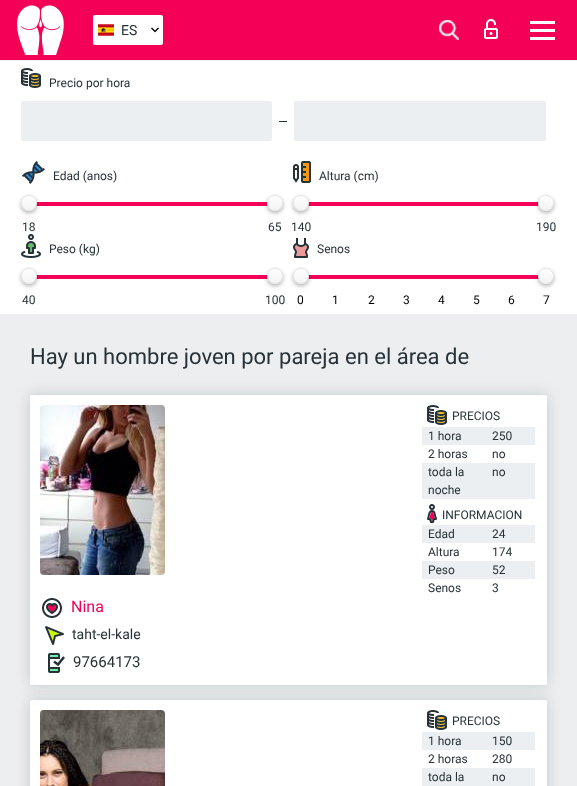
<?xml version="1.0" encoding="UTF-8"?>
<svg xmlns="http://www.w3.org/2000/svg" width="577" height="786">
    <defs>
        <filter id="blur1" x="-50%" y="-200%" width="200%" height="500%"><feGaussianBlur stdDeviation="2"/></filter>
        <clipPath id="clip1"><rect x="21" y="195" width="16" height="16" rx="8"/></clipPath>
        <linearGradient id="g1" gradientUnits="userSpaceOnUse" x1="29" y1="196" x2="29" y2="182"><stop offset="0" stop-color="#F4F4F4"/><stop offset="1" stop-color="#FDFDFD"/></linearGradient>
        <linearGradient id="g2" gradientUnits="userSpaceOnUse" x1="29" y1="210" x2="29" y2="196"><stop offset="0" stop-color="#F4F4F4"/><stop offset="1" stop-color="#FDFDFD"/></linearGradient>
        <linearGradient id="g3" gradientUnits="userSpaceOnUse" x1="29" y1="224" x2="29" y2="210"><stop offset="0" stop-color="#F4F4F4"/><stop offset="1" stop-color="#FDFDFD"/></linearGradient>
        <clipPath id="clip2"><rect x="267" y="195" width="16" height="16" rx="8"/></clipPath>
        <linearGradient id="g4" gradientUnits="userSpaceOnUse" x1="275" y1="196" x2="275" y2="182"><stop offset="0" stop-color="#F4F4F4"/><stop offset="1" stop-color="#FDFDFD"/></linearGradient>
        <linearGradient id="g5" gradientUnits="userSpaceOnUse" x1="275" y1="210" x2="275" y2="196"><stop offset="0" stop-color="#F4F4F4"/><stop offset="1" stop-color="#FDFDFD"/></linearGradient>
        <linearGradient id="g6" gradientUnits="userSpaceOnUse" x1="275" y1="224" x2="275" y2="210"><stop offset="0" stop-color="#F4F4F4"/><stop offset="1" stop-color="#FDFDFD"/></linearGradient>
        <clipPath id="clip3"><rect x="293" y="195" width="16" height="16" rx="8"/></clipPath>
        <linearGradient id="g7" gradientUnits="userSpaceOnUse" x1="301" y1="196" x2="301" y2="182"><stop offset="0" stop-color="#F4F4F4"/><stop offset="1" stop-color="#FDFDFD"/></linearGradient>
        <linearGradient id="g8" gradientUnits="userSpaceOnUse" x1="301" y1="210" x2="301" y2="196"><stop offset="0" stop-color="#F4F4F4"/><stop offset="1" stop-color="#FDFDFD"/></linearGradient>
        <linearGradient id="g9" gradientUnits="userSpaceOnUse" x1="301" y1="224" x2="301" y2="210"><stop offset="0" stop-color="#F4F4F4"/><stop offset="1" stop-color="#FDFDFD"/></linearGradient>
        <clipPath id="clip4"><rect x="538" y="195" width="16" height="16" rx="8"/></clipPath>
        <linearGradient id="g10" gradientUnits="userSpaceOnUse" x1="546" y1="196" x2="546" y2="182"><stop offset="0" stop-color="#F4F4F4"/><stop offset="1" stop-color="#FDFDFD"/></linearGradient>
        <linearGradient id="g11" gradientUnits="userSpaceOnUse" x1="546" y1="210" x2="546" y2="196"><stop offset="0" stop-color="#F4F4F4"/><stop offset="1" stop-color="#FDFDFD"/></linearGradient>
        <linearGradient id="g12" gradientUnits="userSpaceOnUse" x1="546" y1="224" x2="546" y2="210"><stop offset="0" stop-color="#F4F4F4"/><stop offset="1" stop-color="#FDFDFD"/></linearGradient>
        <clipPath id="clip5"><rect x="21" y="268" width="16" height="16" rx="8"/></clipPath>
        <linearGradient id="g13" gradientUnits="userSpaceOnUse" x1="29" y1="269" x2="29" y2="255"><stop offset="0" stop-color="#F4F4F4"/><stop offset="1" stop-color="#FDFDFD"/></linearGradient>
        <linearGradient id="g14" gradientUnits="userSpaceOnUse" x1="29" y1="283" x2="29" y2="269"><stop offset="0" stop-color="#F4F4F4"/><stop offset="1" stop-color="#FDFDFD"/></linearGradient>
        <linearGradient id="g15" gradientUnits="userSpaceOnUse" x1="29" y1="297" x2="29" y2="283"><stop offset="0" stop-color="#F4F4F4"/><stop offset="1" stop-color="#FDFDFD"/></linearGradient>
        <clipPath id="clip6"><rect x="267" y="268" width="16" height="16" rx="8"/></clipPath>
        <linearGradient id="g16" gradientUnits="userSpaceOnUse" x1="275" y1="269" x2="275" y2="255"><stop offset="0" stop-color="#F4F4F4"/><stop offset="1" stop-color="#FDFDFD"/></linearGradient>
        <linearGradient id="g17" gradientUnits="userSpaceOnUse" x1="275" y1="283" x2="275" y2="269"><stop offset="0" stop-color="#F4F4F4"/><stop offset="1" stop-color="#FDFDFD"/></linearGradient>
        <linearGradient id="g18" gradientUnits="userSpaceOnUse" x1="275" y1="297" x2="275" y2="283"><stop offset="0" stop-color="#F4F4F4"/><stop offset="1" stop-color="#FDFDFD"/></linearGradient>
        <clipPath id="clip7"><rect x="293" y="268" width="16" height="16" rx="8"/></clipPath>
        <linearGradient id="g19" gradientUnits="userSpaceOnUse" x1="301" y1="269" x2="301" y2="255"><stop offset="0" stop-color="#F4F4F4"/><stop offset="1" stop-color="#FDFDFD"/></linearGradient>
        <linearGradient id="g20" gradientUnits="userSpaceOnUse" x1="301" y1="283" x2="301" y2="269"><stop offset="0" stop-color="#F4F4F4"/><stop offset="1" stop-color="#FDFDFD"/></linearGradient>
        <linearGradient id="g21" gradientUnits="userSpaceOnUse" x1="301" y1="297" x2="301" y2="283"><stop offset="0" stop-color="#F4F4F4"/><stop offset="1" stop-color="#FDFDFD"/></linearGradient>
        <clipPath id="clip8"><rect x="538" y="268" width="16" height="16" rx="8"/></clipPath>
        <linearGradient id="g22" gradientUnits="userSpaceOnUse" x1="546" y1="269" x2="546" y2="255"><stop offset="0" stop-color="#F4F4F4"/><stop offset="1" stop-color="#FDFDFD"/></linearGradient>
        <linearGradient id="g23" gradientUnits="userSpaceOnUse" x1="546" y1="283" x2="546" y2="269"><stop offset="0" stop-color="#F4F4F4"/><stop offset="1" stop-color="#FDFDFD"/></linearGradient>
        <linearGradient id="g24" gradientUnits="userSpaceOnUse" x1="546" y1="297" x2="546" y2="283"><stop offset="0" stop-color="#F4F4F4"/><stop offset="1" stop-color="#FDFDFD"/></linearGradient>
        <filter id="blur2" x="-50%" y="-200%" width="200%" height="500%"><feGaussianBlur stdDeviation="7"/></filter>
    </defs>
    <rect width="100%" height="100%" fill="#EDEEF0"/>
    <rect x="0" y="0" width="577" height="60" fill="#F50057"/>
    <image x="17" y="5" width="47" height="50" href="img_01.png"/>
    <rect x="93" y="15" width="70" height="30" rx="2" fill="#FFFFFF"/>
    <image x="98" y="24" width="16" height="12" href="img_02.png"/>
    <text x="121" y="35" font-family="Roboto" font-size="14" fill="#263238">ES</text>
    <image x="151" y="27" width="8" height="6" href="img_03.png"/>
    <image x="439" y="20" width="20" height="20" href="img_04.png"/>
    <image x="484" y="19" width="14" height="20" href="img_05.png"/>
    <rect x="530" y="29" width="25" height="3" fill="#FFFFFF"/>
    <rect x="530" y="21" width="25" height="3" fill="#FFFFFF"/>
    <rect x="530" y="37" width="25" height="3" fill="#FFFFFF"/>
    <rect x="0" y="61" width="577" height="253" fill="#FFFFFF"/>
    <image x="21" y="68" width="20" height="20" href="img_06.png"/>
    <text x="49" y="87" font-family="Roboto" font-size="12" fill="#263238">Precio por hora</text>
    <rect x="21" y="101" width="251" height="40" rx="2" fill="#ECEFF1"/>
    <rect x="279" y="121" width="8" height="1" fill="#263238"/>
    <rect x="294" y="101" width="252" height="40" rx="2" fill="#ECEFF1"/>
    <image x="22" y="161" width="23" height="23" href="img_07.png"/>
    <text x="53" y="180" font-family="Roboto" font-size="12" fill="#263238">Edad (anos)</text>
    <rect x="29" y="202" width="246" height="4" fill="#F50057"/>
    <rect x="21" y="197" width="16" height="16" rx="8" fill="#000000" fill-opacity="0.3" filter="url(#blur1)"/>
    <g clip-path="url(#clip1)">
        <rect x="21" y="195" width="16" height="1" fill="url(#g1)"/>
        <rect x="21" y="196" width="16" height="14" fill="url(#g2)"/>
        <rect x="21" y="210" width="16" height="1" fill="url(#g3)"/>
    </g>
    <path d="M 29 198 C 33.5 198 35.5 201.5 35.5 205 C 38 196.5 26 192 22.5 200.5 C 22 201.5 22 203.5 22.5 205 C 22.5 201.5 24.5 198 29 198 Z" fill="#FFFFFF"/>
    <circle cx="29" cy="203" r="7.5" fill="none" stroke="#D9D9D9" stroke-opacity="0.6"/>
    <rect x="267" y="197" width="16" height="16" rx="8" fill="#000000" fill-opacity="0.3" filter="url(#blur1)"/>
    <g clip-path="url(#clip2)">
        <rect x="267" y="195" width="16" height="1" fill="url(#g4)"/>
        <rect x="267" y="196" width="16" height="14" fill="url(#g5)"/>
        <rect x="267" y="210" width="16" height="1" fill="url(#g6)"/>
    </g>
    <path d="M 275 198 C 279.5 198 281.5 201.5 281.5 205 C 282 203.5 282 201.5 281.5 200.5 C 278 192 266 196.5 268.5 205 C 268.5 201.5 270.5 198 275 198 Z" fill="#FFFFFF"/>
    <circle cx="275" cy="203" r="7.5" fill="none" stroke="#D9D9D9" stroke-opacity="0.6"/>
    <text x="22" y="231" font-family="Roboto" font-size="12" fill="#263238">18</text>
    <text x="268" y="231" font-family="Roboto" font-size="12" fill="#263238">65</text>
    <image x="293" y="161" width="18" height="22" href="img_08.png"/>
    <text x="319" y="180" font-family="Roboto" font-size="12" fill="#263238">Altura (cm)</text>
    <rect x="301" y="202" width="245" height="4" fill="#F50057"/>
    <rect x="293" y="197" width="16" height="16" rx="8" fill="#000000" fill-opacity="0.3" filter="url(#blur1)"/>
    <g clip-path="url(#clip3)">
        <rect x="293" y="195" width="16" height="1" fill="url(#g7)"/>
        <rect x="293" y="196" width="16" height="14" fill="url(#g8)"/>
        <rect x="293" y="210" width="16" height="1" fill="url(#g9)"/>
    </g>
    <path d="M 301 198 C 305.5 198 307.5 201.5 307.5 205 C 308 203.5 308 201.5 307.5 200.5 C 304 192 292 196.5 294.5 205 C 294.5 201.5 296.5 198 301 198 Z" fill="#FFFFFF"/>
    <circle cx="301" cy="203" r="7.5" fill="none" stroke="#D9D9D9" stroke-opacity="0.6"/>
    <rect x="538" y="197" width="16" height="16" rx="8" fill="#000000" fill-opacity="0.3" filter="url(#blur1)"/>
    <g clip-path="url(#clip4)">
        <rect x="538" y="195" width="16" height="1" fill="url(#g10)"/>
        <rect x="538" y="196" width="16" height="14" fill="url(#g11)"/>
        <rect x="538" y="210" width="16" height="1" fill="url(#g12)"/>
    </g>
    <path d="M 546 198 C 550.5 198 552.5 201.5 552.5 205 C 553 203.5 553 201.5 552.5 200.5 C 549 192 537 196.5 539.5 205 C 539.5 201.5 541.5 198 546 198 Z" fill="#FFFFFF"/>
    <circle cx="546" cy="203" r="7.5" fill="none" stroke="#D9D9D9" stroke-opacity="0.6"/>
    <text x="291" y="231" font-family="Roboto" font-size="12" fill="#263238">140</text>
    <text x="536" y="231" font-family="Roboto" font-size="12" fill="#263238">190</text>
    <image x="21" y="234" width="20" height="24" href="img_09.png"/>
    <text x="49" y="253" font-family="Roboto" font-size="12" fill="#263238">Peso (kg)</text>
    <rect x="29" y="275" width="246" height="4" fill="#F50057"/>
    <rect x="21" y="270" width="16" height="16" rx="8" fill="#000000" fill-opacity="0.3" filter="url(#blur1)"/>
    <g clip-path="url(#clip5)">
        <rect x="21" y="268" width="16" height="1" fill="url(#g13)"/>
        <rect x="21" y="269" width="16" height="14" fill="url(#g14)"/>
        <rect x="21" y="283" width="16" height="1" fill="url(#g15)"/>
    </g>
    <path d="M 29 271 C 33.5 271 35.5 274.5 35.5 278 C 38 269.5 26 265 22.5 273.5 C 22 274.5 22 276.5 22.5 278 C 22.5 274.5 24.5 271 29 271 Z" fill="#FFFFFF"/>
    <circle cx="29" cy="276" r="7.5" fill="none" stroke="#D9D9D9" stroke-opacity="0.6"/>
    <rect x="267" y="270" width="16" height="16" rx="8" fill="#000000" fill-opacity="0.3" filter="url(#blur1)"/>
    <g clip-path="url(#clip6)">
        <rect x="267" y="268" width="16" height="1" fill="url(#g16)"/>
        <rect x="267" y="269" width="16" height="14" fill="url(#g17)"/>
        <rect x="267" y="283" width="16" height="1" fill="url(#g18)"/>
    </g>
    <path d="M 275 271 C 279.5 271 281.5 274.5 281.5 278 C 282 276.5 282 274.5 281.5 273.5 C 278 265 266 269.5 268.5 278 C 268.5 274.5 270.5 271 275 271 Z" fill="#FFFFFF"/>
    <circle cx="275" cy="276" r="7.5" fill="none" stroke="#D9D9D9" stroke-opacity="0.6"/>
    <text x="22" y="304" font-family="Roboto" font-size="12" fill="#263238">40</text>
    <text x="265" y="304" font-family="Roboto" font-size="12" fill="#263238">100</text>
    <image x="293" y="238" width="16" height="20" href="img_10.png"/>
    <text x="317" y="253" font-family="Roboto" font-size="12" fill="#263238">Senos</text>
    <rect x="301" y="275" width="245" height="4" fill="#F50057"/>
    <rect x="293" y="270" width="16" height="16" rx="8" fill="#000000" fill-opacity="0.3" filter="url(#blur1)"/>
    <g clip-path="url(#clip7)">
        <rect x="293" y="268" width="16" height="1" fill="url(#g19)"/>
        <rect x="293" y="269" width="16" height="14" fill="url(#g20)"/>
        <rect x="293" y="283" width="16" height="1" fill="url(#g21)"/>
    </g>
    <path d="M 301 271 C 305.5 271 307.5 274.5 307.5 278 C 310 269.5 298 265 294.5 273.5 C 294 274.5 294 276.5 294.5 278 C 294.5 274.5 296.5 271 301 271 Z" fill="#FFFFFF"/>
    <circle cx="301" cy="276" r="7.5" fill="none" stroke="#D9D9D9" stroke-opacity="0.6"/>
    <rect x="538" y="270" width="16" height="16" rx="8" fill="#000000" fill-opacity="0.3" filter="url(#blur1)"/>
    <g clip-path="url(#clip8)">
        <rect x="538" y="268" width="16" height="1" fill="url(#g22)"/>
        <rect x="538" y="269" width="16" height="14" fill="url(#g23)"/>
        <rect x="538" y="283" width="16" height="1" fill="url(#g24)"/>
    </g>
    <path d="M 546 271 C 550.5 271 552.5 274.5 552.5 278 C 553 276.5 553 274.5 552.5 273.5 C 549 265 537 269.5 539.5 278 C 539.5 274.5 541.5 271 546 271 Z" fill="#FFFFFF"/>
    <circle cx="546" cy="276" r="7.5" fill="none" stroke="#D9D9D9" stroke-opacity="0.6"/>
    <text x="297" y="304" font-family="Roboto" font-size="12" fill="#000000">0</text>
    <text x="332" y="304" font-family="Roboto" font-size="12" fill="#000000">1</text>
    <text x="368" y="304" font-family="Roboto" font-size="12" fill="#000000">2</text>
    <text x="403" y="304" font-family="Roboto" font-size="12" fill="#000000">3</text>
    <text x="438" y="304" font-family="Roboto" font-size="12" fill="#000000">4</text>
    <text x="473" y="304" font-family="Roboto" font-size="12" fill="#000000">5</text>
    <text x="508" y="304" font-family="Roboto" font-size="12" fill="#000000">6</text>
    <text x="543" y="304" font-family="Roboto" font-size="12" fill="#000000">7</text>
    <text x="30" y="364" font-family="Roboto" font-size="22" fill="#263238">Hay un hombre joven por pareja en el área de</text>
    <rect x="30" y="395" width="517" height="290" rx="2" fill="#263238" fill-opacity="0.2" filter="url(#blur2)"/>
    <rect x="30" y="395" width="517" height="290" rx="2" fill="#FFFFFF"/>
    <image x="40" y="405" width="125" height="170" href="img_11.png"/>
    <image x="427" y="405" width="20" height="20" href="img_06.png"/>
    <text x="452" y="420" font-family="Roboto" font-size="12" fill="#263238">PRECIOS</text>
    <rect x="422" y="427" width="113" height="18" fill="#ECEFF1"/>
    <text x="428" y="440" font-family="Roboto" font-size="12" fill="#263238">1 hora</text>
    <text x="492" y="440" font-family="Roboto" font-size="12" fill="#263238">250</text>
    <text x="428" y="458" font-family="Roboto" font-size="12" fill="#263238">2 horas</text>
    <text x="492" y="458" font-family="Roboto" font-size="12" fill="#263238">no</text>
    <rect x="422" y="463" width="113" height="36" fill="#ECEFF1"/>
    <text font-family="Roboto" font-size="12" fill="#263238">
        <tspan x="428" y="476">toda la</tspan>
        <tspan x="428" y="494">noche</tspan>
    </text>
    <text x="492" y="476" font-family="Roboto" font-size="12" fill="#263238">no</text>
    <image x="427" y="504" width="10" height="19" href="img_12.png"/>
    <text x="442" y="519" font-family="Roboto" font-size="12" fill="#263238">INFORMACION</text>
    <rect x="422" y="525" width="113" height="18" fill="#ECEFF1"/>
    <text x="428" y="538" font-family="Roboto" font-size="12" fill="#263238">Edad</text>
    <text x="492" y="538" font-family="Roboto" font-size="12" fill="#263238">24</text>
    <text x="428" y="556" font-family="Roboto" font-size="12" fill="#263238">Altura</text>
    <text x="492" y="556" font-family="Roboto" font-size="12" fill="#263238">174</text>
    <rect x="422" y="561" width="113" height="18" fill="#ECEFF1"/>
    <text x="428" y="574" font-family="Roboto" font-size="12" fill="#263238">Peso</text>
    <text x="492" y="574" font-family="Roboto" font-size="12" fill="#263238">52</text>
    <text x="428" y="592" font-family="Roboto" font-size="12" fill="#263238">Senos</text>
    <text x="492" y="592" font-family="Roboto" font-size="12" fill="#263238">3</text>
    <image x="42" y="598" width="20" height="20" href="img_13.png"/>
    <text x="71" y="612" font-family="Roboto" font-size="16" fill="#F50057">Nina</text>
    <image x="45" y="626" width="19" height="19" href="img_14.png"/>
    <text x="72" y="639" font-family="Roboto" font-size="14" fill="#263238">taht-el-kale</text>
    <image x="48" y="653" width="17" height="20" href="img_15.png"/>
    <text x="73" y="667" font-family="Roboto" font-size="15" fill="#263238">97664173</text>
    <rect x="30" y="700" width="517" height="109" rx="2" fill="#263238" fill-opacity="0.2" filter="url(#blur2)"/>
    <rect x="30" y="700" width="517" height="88" rx="2" fill="#FFFFFF"/>
    <image x="40" y="710" width="125" height="76" href="img_16.png"/>
    <image x="427" y="710" width="20" height="20" href="img_06.png"/>
    <text x="452" y="725" font-family="Roboto" font-size="12" fill="#263238">PRECIOS</text>
    <rect x="422" y="732" width="113" height="18" fill="#ECEFF1"/>
    <text x="428" y="745" font-family="Roboto" font-size="12" fill="#263238">1 hora</text>
    <text x="492" y="745" font-family="Roboto" font-size="12" fill="#263238">150</text>
    <text x="428" y="763" font-family="Roboto" font-size="12" fill="#263238">2 horas</text>
    <text x="492" y="763" font-family="Roboto" font-size="12" fill="#263238">280</text>
    <rect x="422" y="768" width="113" height="18" fill="#ECEFF1"/>
    <text x="428" y="781" font-family="Roboto" font-size="12" fill="#263238">toda la</text>
    <text x="492" y="781" font-family="Roboto" font-size="12" fill="#263238">no</text>
</svg>
